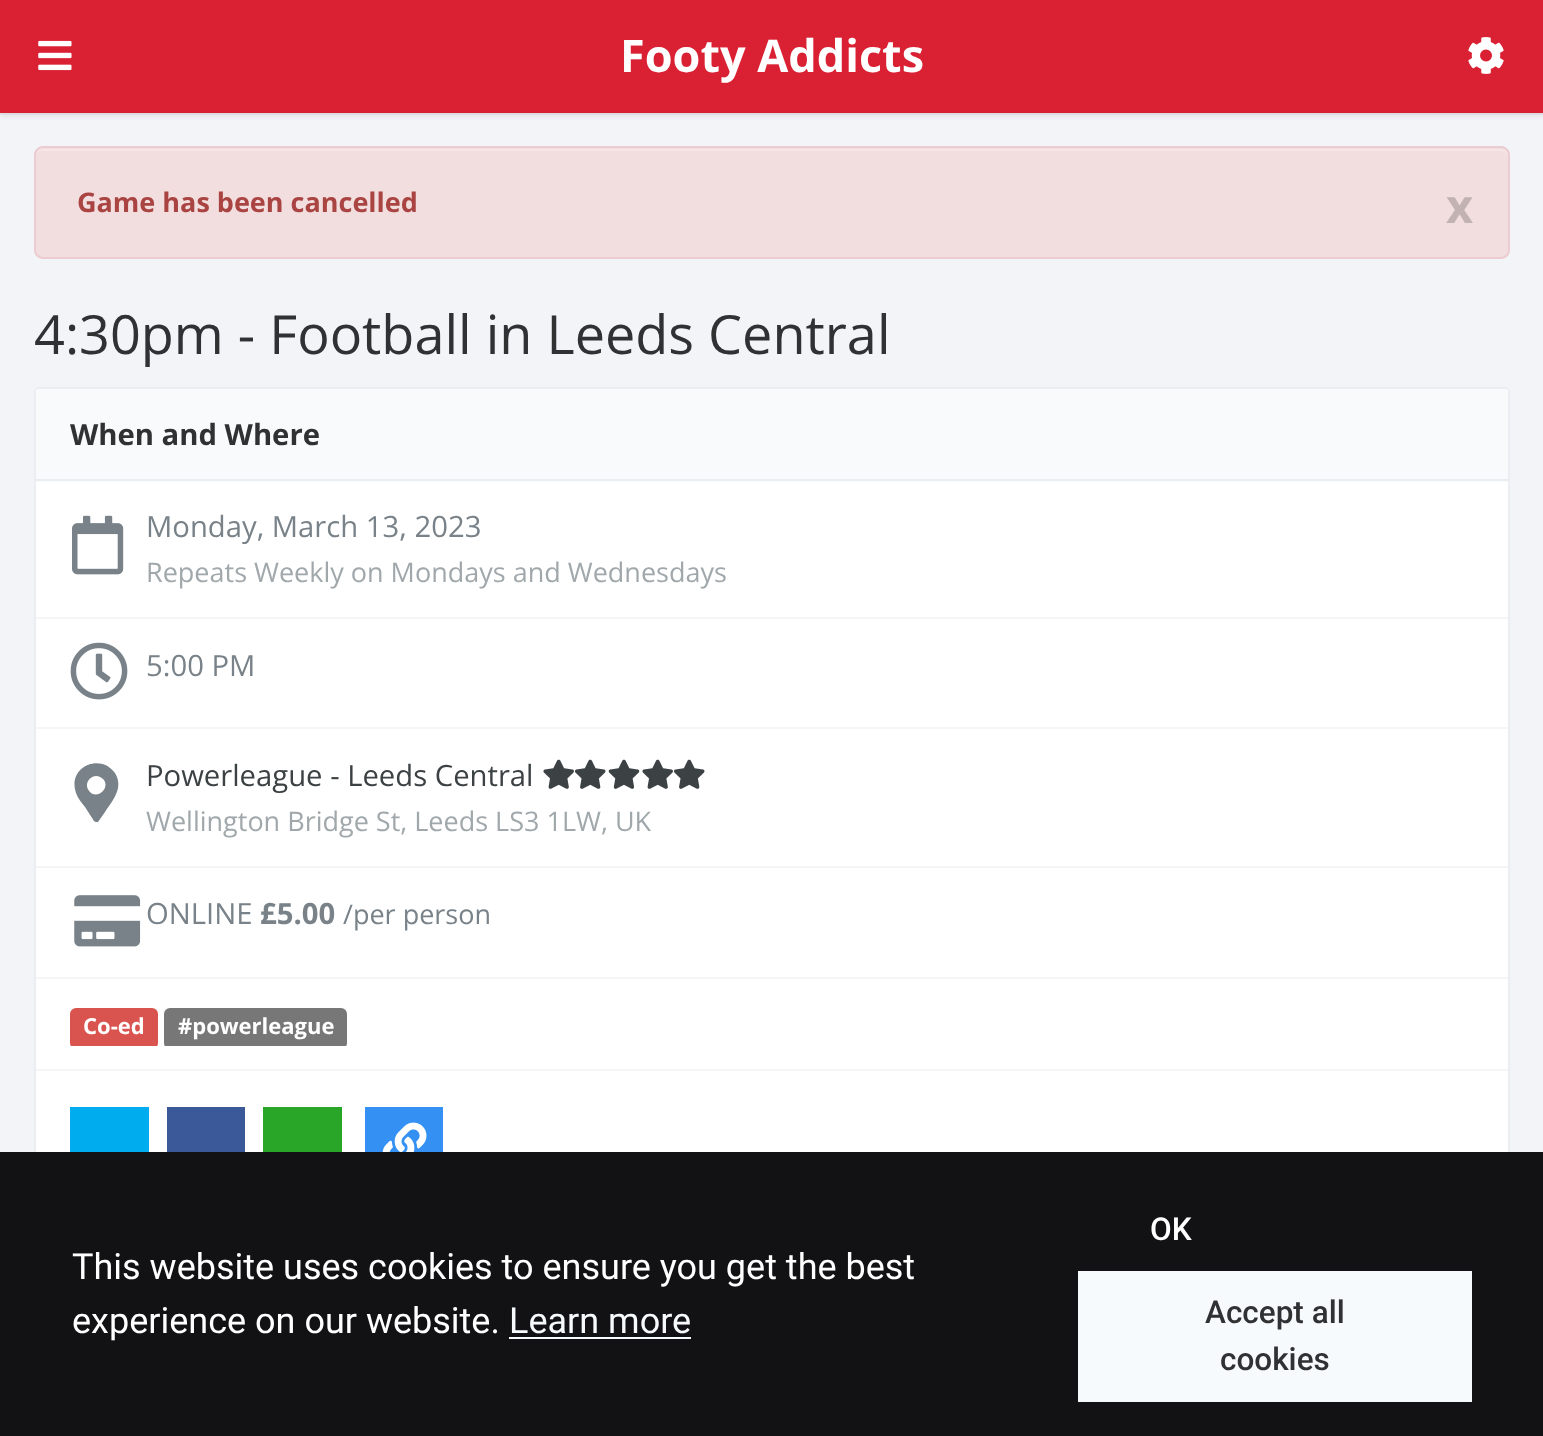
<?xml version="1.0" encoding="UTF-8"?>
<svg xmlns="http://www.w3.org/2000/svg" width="1543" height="1436">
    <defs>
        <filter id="blur1" x="-50%" y="-200%" width="200%" height="500%"><feGaussianBlur stdDeviation="2"/></filter>
        <clipPath id="clip1"><rect x="70" y="1001" width="1404" height="45"/></clipPath>
    </defs>
    <rect width="100%" height="100%" fill="#F2F4F8"/>
    <path d="M 0 112 V 115 H 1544 V 2 V 112 Z" fill="#E6E8EC"/>
    <rect x="0" y="5" width="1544" height="112" fill="#000000" fill-opacity="0.05" filter="url(#blur1)"/>
    <rect x="0" y="0" width="1543" height="113" fill="#DA2134"/>
    <image x="38" y="40" width="34" height="31" href="img_01.png"/>
    <text x="620" y="72" font-family="Open Sans" font-size="45" font-weight="700" fill="#FFFFFF">Footy Addicts</text>
    <image x="1468" y="37" width="36" height="37" href="img_02.png"/>
    <rect x="34" y="146" width="1476" height="113" rx="9" fill="#F2DEDE"/>
    <path d="M 43 151 H 1501 C 1504 151 1508 154 1508 158 V 156 C 1508 152 1505 149 1501 149 H 43 C 39 149 36 152 36 156 V 158 C 36 154 39 151 43 151 Z" fill="#F5E5E5"/>
    <rect x="35" y="147" width="1474" height="111" rx="8" fill="none" stroke="#EBCCD1" stroke-width="2"/>
    <text x="77" y="212" font-family="Open Sans" font-size="27" font-weight="700" fill="#A94442">Game has been cancelled</text>
    <text x="1446" y="223" font-family="Open Sans" font-size="47" font-weight="700" fill="#C2B2B2">x</text>
    <text x="34" y="354" font-family="Open Sans" font-size="54" fill="#303132">4:30pm - Football in Leeds Central</text>
    <rect x="35" y="388" width="1474" height="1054" rx="4" fill="#FFFFFF" stroke="#EAEEF1" stroke-width="2"/>
    <path d="M 41 389 H 1503 C 1506 389 1508 391 1508 394 V 482 H 36 V 394 C 36 391 38 389 41 389 Z" fill="#F9FAFC"/>
    <rect x="36" y="479" width="1472" height="2" fill="#EAEEF1"/>
    <text x="70" y="445" font-family="Open Sans" font-size="29.25" font-weight="700" fill="#303132">When and Where</text>
    <rect x="36" y="617" width="1472" height="2" fill="#F3F5F7"/>
    <image x="72" y="515" width="52" height="60" href="img_03.png"/>
    <text x="146" y="537" font-family="Open Sans" font-size="29.25" fill="#788288">Monday, March 13, 2023</text>
    <text x="146" y="582" font-family="Open Sans" font-size="27" fill="#A1A8AC">Repeats Weekly on Mondays and Wednesdays</text>
    <rect x="36" y="727" width="1472" height="2" fill="#F3F5F7"/>
    <image x="70" y="642" width="58" height="58" href="img_04.png"/>
    <text x="146" y="676" font-family="Open Sans" font-size="29.25" fill="#788288">5:00 PM</text>
    <rect x="36" y="866" width="1472" height="2" fill="#F3F5F7"/>
    <path d="M 94 821 L 85 807 C 81 802 76 796 75 789 C 70 766 101 753 115 773 C 124 788 113 800 105 812 L 98 822 C 96 822 95 822 94 821 Z M 90 792 C 98 800 111 787 103 779 C 94 770 81 783 90 792 Z" fill="#788288"/>
    <text x="146" y="786" font-family="Open Sans" font-size="29.25" fill="#3C4144">Powerleague - Leeds Central</text>
    <image x="543" y="759" width="31" height="30" href="img_05.png"/>
    <image x="574" y="759" width="32" height="30" href="img_06.png"/>
    <image x="608" y="759" width="32" height="30" href="img_07.png"/>
    <image x="642" y="759" width="31" height="30" href="img_05.png"/>
    <image x="673" y="759" width="32" height="30" href="img_06.png"/>
    <text x="146" y="831" font-family="Open Sans" font-size="27" fill="#A1A8AC">Wellington Bridge St, Leeds LS3 1LW, UK</text>
    <rect x="36" y="977" width="1472" height="2" fill="#F3F5F7"/>
    <image x="74" y="895" width="67" height="52" href="img_08.png"/>
    <text x="146" y="924" font-family="Open Sans" font-size="29.25" fill="#788288">ONLINE</text>
    <text x="260" y="924" font-family="Open Sans" font-size="29.25" font-weight="700" fill="#788288">£5.00</text>
    <text x="343" y="924" font-family="Open Sans" font-size="27" fill="#788288">/per person</text>
    <rect x="36" y="1069" width="1472" height="2" fill="#F3F5F7"/>
    <g clip-path="url(#clip1)">
        <rect x="70" y="1008" width="88" height="41" rx="6" fill="#D9534F"/>
    </g>
    <text x="83" y="1034" font-family="Open Sans" font-size="22" font-weight="700" fill="#FFFFFF">Co-ed</text>
    <g clip-path="url(#clip1)">
        <rect x="164" y="1008" width="183" height="41" rx="6" fill="#777777"/>
    </g>
    <text x="178" y="1034" font-family="Open Sans" font-size="22" font-weight="700" fill="#FFFFFF">#powerleague</text>
    <rect x="70" y="1107" width="79" height="45" fill="#00ACED"/>
    <rect x="167" y="1107" width="78" height="45" fill="#3B5998"/>
    <rect x="263" y="1107" width="79" height="45" fill="#29A628"/>
    <rect x="365" y="1107" width="78" height="45" fill="#3490F3"/>
    <image x="382" y="1122" width="45" height="30" href="img_09.png"/>
    <rect x="0" y="1152" width="1543" height="284" fill="#121214"/>
    <text font-family="Roboto" font-size="36" fill="#FFFFFF">
        <tspan x="72" y="1279">This website uses cookies to ensure you get the best</tspan>
        <tspan x="72" y="1333">experience on our website.</tspan>
    </text>
    <text x="509" y="1333" font-family="Roboto" font-size="36" fill="#F7FAFC">Learn more</text>
    <rect x="509" y="1337" width="182" height="2" fill="#F7FAFC"/>
    <text x="1150" y="1240" font-family="Roboto" font-size="31.5" font-weight="500" fill="#FFFFFF">OK</text>
    <rect x="1078" y="1271" width="394" height="131" fill="#F7FAFC"/>
    <text x="1205" y="1323" font-family="Roboto" font-size="31.5" font-weight="500" fill="#303132">Accept all</text>
    <text x="1220" y="1370" font-family="Roboto" font-size="31.5" font-weight="500" fill="#303132">cookies</text>
</svg>
